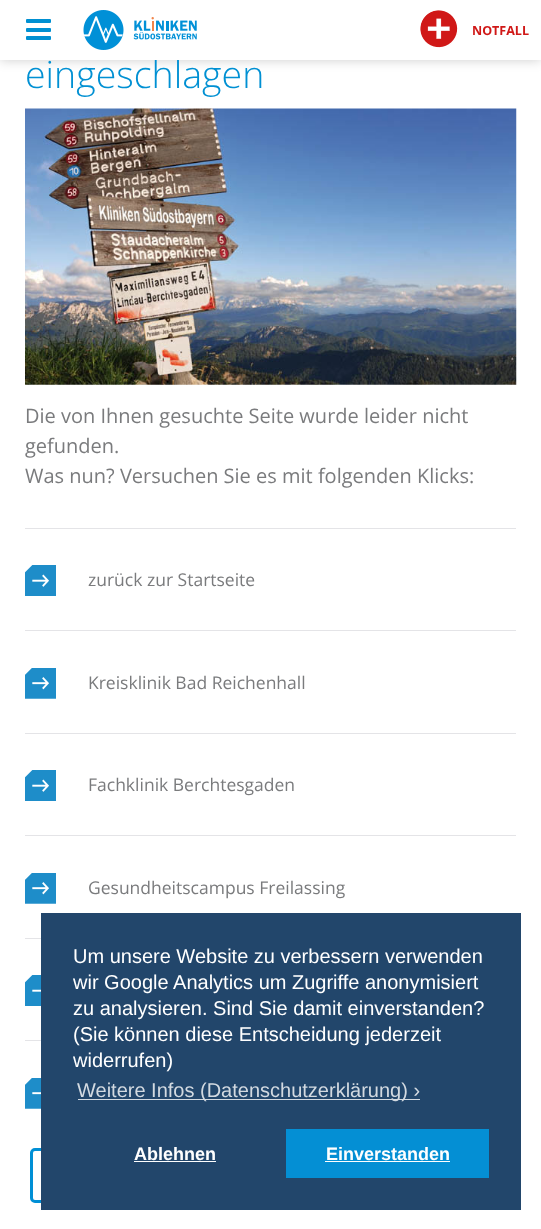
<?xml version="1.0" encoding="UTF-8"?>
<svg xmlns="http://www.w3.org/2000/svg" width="541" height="1229">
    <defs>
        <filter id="blur1" x="-50%" y="-200%" width="200%" height="500%"><feGaussianBlur stdDeviation="6"/></filter>
    </defs>
    <rect width="100%" height="100%" fill="#FFFFFF"/>
    <rect x="0" y="0" width="541" height="60" fill="#000000" fill-opacity="0.2" filter="url(#blur1)"/>
    <text x="25" y="88" font-family="Open Sans" font-size="37.5" font-weight="300" fill="#0090D3">eingeschlagen</text>
    <rect x="0" y="0" width="541" height="60" fill="#FFFFFF"/>
    <rect x="26" y="19" width="25" height="4" rx="1" fill="#0090D2"/>
    <rect x="26" y="28" width="25" height="4" rx="1" fill="#0090D2"/>
    <rect x="26" y="36" width="25" height="4" rx="1" fill="#0090D2"/>
    <image x="83" y="10" width="114" height="40" href="img_01.png"/>
    <image x="420" y="10" width="38" height="38" href="img_02.png"/>
    <text x="472" y="35" font-family="Open Sans" font-size="12.5" font-weight="700" fill="#D01817">NOTFALL</text>
    <image x="25" y="108" width="492" height="277" href="img_03.png"/>
    <text font-family="Open Sans" font-size="20" fill="#7A7B7D">
        <tspan x="25" y="423">Die von Ihnen gesuchte Seite wurde leider nicht</tspan>
        <tspan x="25" y="453">gefunden.</tspan>
        <tspan x="25" y="483">Was nun? Versuchen Sie es mit folgenden Klicks:</tspan>
    </text>
    <rect x="25" y="528" width="491" height="1" fill="#E4E4E7"/>
    <image x="25" y="565" width="31" height="31" href="img_04.png"/>
    <text x="88" y="586" font-family="Open Sans" font-size="17.5" fill="#7A7B7D">zurück zur Startseite</text>
    <rect x="25" y="630" width="491" height="1" fill="#E4E4E7"/>
    <image x="25" y="668" width="31" height="31" href="img_05.png"/>
    <text x="88" y="689" font-family="Open Sans" font-size="17.5" fill="#7A7B7D">Kreisklinik Bad Reichenhall</text>
    <rect x="25" y="733" width="491" height="1" fill="#E4E4E7"/>
    <image x="25" y="770" width="31" height="31" href="img_04.png"/>
    <text x="88" y="791" font-family="Open Sans" font-size="17.5" fill="#7A7B7D">Fachklinik Berchtesgaden</text>
    <rect x="25" y="835" width="491" height="1" fill="#E4E4E7"/>
    <image x="25" y="873" width="31" height="31" href="img_05.png"/>
    <text x="88" y="894" font-family="Open Sans" font-size="17.5" fill="#7A7B7D">Gesundheitscampus Freilassing</text>
    <rect x="25" y="938" width="16" height="1" fill="#E4E4E7"/>
    <image x="25" y="975" width="16" height="31" href="img_06.png"/>
    <rect x="25" y="1040" width="16" height="1" fill="#E4E4E7"/>
    <image x="25" y="1078" width="16" height="31" href="img_07.png"/>
    <rect x="31.5" y="1149.5" width="382" height="52" rx="3.5" fill="none" stroke="#008FD5" stroke-width="3"/>
    <rect x="41" y="913" width="480" height="297" fill="#22466B"/>
    <text font-family="Liberation Sans" font-size="20" fill="#FFFFFF">
        <tspan x="73" y="963">Um unsere Website zu verbessern verwenden</tspan>
        <tspan x="73" y="989">wir Google Analytics um Zugriffe anonymisiert</tspan>
        <tspan x="73" y="1015">zu analysieren. Sind Sie damit einverstanden?</tspan>
        <tspan x="73" y="1041">(Sie können diese Entscheidung jederzeit</tspan>
        <tspan x="73" y="1067">widerrufen)</tspan>
    </text>
    <rect x="78" y="1099" width="342" height="1" fill="#D3DAE1"/>
    <text x="77" y="1097" font-family="Liberation Sans" font-size="20" fill="#D3DAE1">Weitere Infos (Datenschutzerklärung) ›</text>
    <text x="134" y="1160" font-family="Liberation Sans" font-size="18" font-weight="700" fill="#FFFFFF">Ablehnen</text>
    <rect x="134" y="1161" width="82" height="1" fill="#FFFFFF"/>
    <rect x="286" y="1129" width="203" height="49" fill="#048FD4"/>
    <text x="326" y="1160" font-family="Liberation Sans" font-size="18" font-weight="700" fill="#FFFFFF">Einverstanden</text>
    <rect x="325" y="1161" width="125" height="1" fill="#FFFFFF"/>
</svg>
